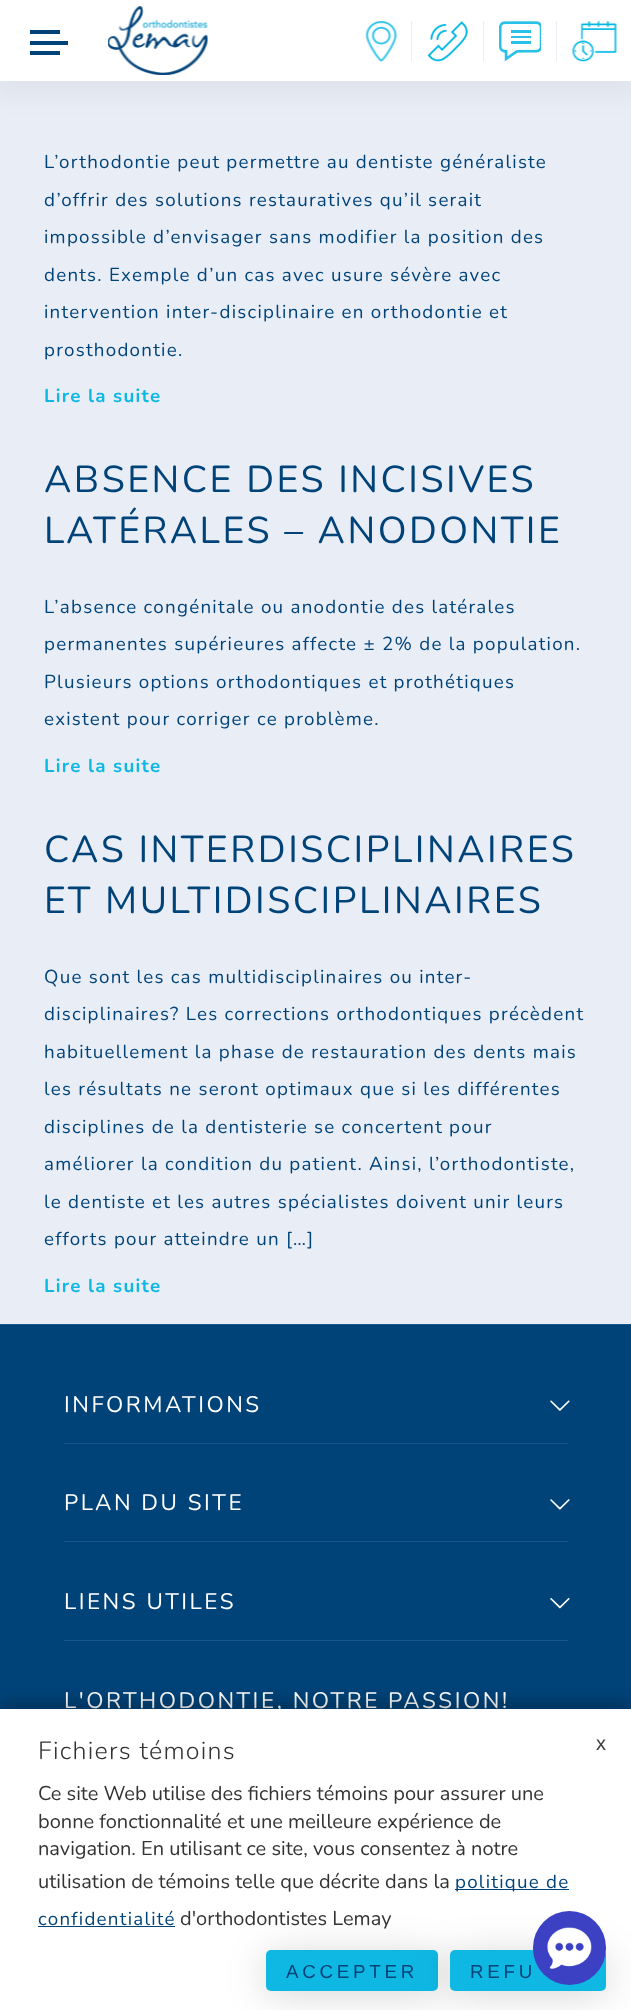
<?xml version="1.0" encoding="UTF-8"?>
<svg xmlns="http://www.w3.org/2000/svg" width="631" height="2010">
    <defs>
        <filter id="blur1" x="-50%" y="-200%" width="200%" height="500%"><feGaussianBlur stdDeviation="12.5"/></filter>
        <filter id="blur2" x="-50%" y="-200%" width="200%" height="500%"><feGaussianBlur stdDeviation="8"/></filter>
        <filter id="blur3" x="-50%" y="-200%" width="200%" height="500%"><feGaussianBlur stdDeviation="19"/></filter>
    </defs>
    <rect width="100%" height="100%" fill="#E9EDF6"/>
    <rect x="-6" y="0" width="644" height="94" fill="#000000" fill-opacity="0.05" filter="url(#blur1)"/>
    <rect x="0" y="0" width="631" height="81" fill="#FFFFFF"/>
    <rect x="30" y="41" width="38" height="4" fill="#004379"/>
    <rect x="30" y="30" width="30" height="4" fill="#004379"/>
    <rect x="30" y="51" width="30" height="4" fill="#004379"/>
    <image x="108" y="6" width="100" height="69" href="img_01.png"/>
    <image x="365" y="21" width="32" height="41" href="img_02.png"/>
    <rect x="411" y="21" width="1" height="40" fill="#E9EDF6"/>
    <image x="427" y="21" width="41" height="41" href="img_03.png"/>
    <rect x="483" y="21" width="1" height="40" fill="#E9EDF6"/>
    <image x="499" y="21" width="42" height="40" href="img_04.png"/>
    <rect x="556" y="21" width="1" height="40" fill="#E9EDF6"/>
    <image x="572" y="21" width="45" height="41" href="img_05.png"/>
    <text x="44" y="168" font-family="Nunito" font-size="18.75" letter-spacing="1.25" fill="#004379">L’orthodontie peut permettre au dentiste généraliste</text>
    <text font-family="Nunito" font-size="18.75" letter-spacing="1.25" fill="#004379">
        <tspan x="44" y="206">d’offrir des solutions restauratives qu’il serait</tspan>
        <tspan x="44" y="243">impossible d’envisager sans modifier la position des</tspan>
    </text>
    <text font-family="Nunito" font-size="18.75" letter-spacing="1.25" fill="#004379">
        <tspan x="44" y="281">dents. Exemple d’un cas avec usure sévère avec</tspan>
        <tspan x="44" y="318">intervention inter-disciplinaire en orthodontie et</tspan>
    </text>
    <text x="44" y="356" font-family="Nunito" font-size="18.75" letter-spacing="1.25" fill="#004379">prosthodontie.</text>
    <text x="44" y="402" font-family="Nunito" font-size="18.75" font-weight="700" letter-spacing="1.25" fill="#0EB8E3">Lire la suite</text>
    <text font-family="Nunito" font-size="37.5" letter-spacing="2.5" fill="#004379">
        <tspan x="44" y="492">ABSENCE DES INCISIVES</tspan>
        <tspan x="44" y="543">LATÉRALES – ANODONTIE</tspan>
    </text>
    <text font-family="Nunito" font-size="18.75" letter-spacing="1.25" fill="#004379">
        <tspan x="44" y="613">L’absence congénitale ou anodontie des latérales</tspan>
        <tspan x="44" y="650">permanentes supérieures affecte ± 2% de la population.</tspan>
    </text>
    <text font-family="Nunito" font-size="18.75" letter-spacing="1.25" fill="#004379">
        <tspan x="44" y="688">Plusieurs options orthodontiques et prothétiques</tspan>
        <tspan x="44" y="725">existent pour corriger ce problème.</tspan>
    </text>
    <text x="44" y="772" font-family="Nunito" font-size="18.75" font-weight="700" letter-spacing="1.25" fill="#0EB8E3">Lire la suite</text>
    <text font-family="Nunito" font-size="37.5" letter-spacing="2.5" fill="#004379">
        <tspan x="44" y="862">CAS INTERDISCIPLINAIRES</tspan>
        <tspan x="44" y="913">ET MULTIDISCIPLINAIRES</tspan>
    </text>
    <text font-family="Nunito" font-size="18.75" letter-spacing="1.25" fill="#004379">
        <tspan x="44" y="983">Que sont les cas multidisciplinaires ou inter-</tspan>
        <tspan x="44" y="1020">disciplinaires? Les corrections orthodontiques précèdent</tspan>
    </text>
    <text font-family="Nunito" font-size="18.75" letter-spacing="1.25" fill="#004379">
        <tspan x="44" y="1058">habituellement la phase de restauration des dents mais</tspan>
        <tspan x="44" y="1095">les résultats ne seront optimaux que si les différentes</tspan>
    </text>
    <text font-family="Nunito" font-size="18.75" letter-spacing="1.25" fill="#004379">
        <tspan x="44" y="1133">disciplines de la dentisterie se concertent pour</tspan>
        <tspan x="44" y="1170">améliorer la condition du patient. Ainsi, l’orthodontiste,</tspan>
    </text>
    <text font-family="Nunito" font-size="18.75" letter-spacing="1.25" fill="#004379">
        <tspan x="44" y="1208">le dentiste et les autres spécialistes doivent unir leurs</tspan>
        <tspan x="44" y="1245">efforts pour atteindre un […]</tspan>
    </text>
    <text x="44" y="1292" font-family="Nunito" font-size="18.75" font-weight="700" letter-spacing="1.25" fill="#0EB8E3">Lire la suite</text>
    <rect x="0" y="1325" width="631" height="384" fill="#004379"/>
    <rect x="0" y="1324" width="631" height="1" fill="#15578D"/>
    <rect x="64" y="1443" width="504" height="1" fill="#15578D"/>
    <text x="64" y="1412" font-family="Nunito" font-size="22.5" letter-spacing="2.5" fill="#FFFFFF">INFORMATIONS</text>
    <image x="550" y="1400" width="20" height="11" href="img_06.png"/>
    <rect x="64" y="1541" width="504" height="1" fill="#15578D"/>
    <text x="64" y="1510" font-family="Nunito" font-size="22.5" letter-spacing="2.5" fill="#FFFFFF">PLAN DU SITE</text>
    <image x="550" y="1499" width="20" height="11" href="img_07.png"/>
    <rect x="64" y="1640" width="504" height="1" fill="#15578D"/>
    <text x="64" y="1609" font-family="Nunito" font-size="22.5" letter-spacing="2.5" fill="#FFFFFF">LIENS UTILES</text>
    <image x="550" y="1598" width="20" height="11" href="img_08.png"/>
    <text x="64" y="1708" font-family="Nunito" font-size="22.5" letter-spacing="2.5" fill="#FFFFFF">L'ORTHODONTIE, NOTRE PASSION!</text>
    <rect x="0" y="1701" width="631" height="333" fill="#000000" fill-opacity="0.23" filter="url(#blur2)"/>
    <rect x="0" y="1709" width="631" height="301" fill="#FFFFFF"/>
    <text x="38" y="1759" font-family="Nunito" font-size="25" font-weight="300" letter-spacing="1.25" fill="#333333">Fichiers témoins</text>
    <text font-family="Nunito" font-size="20" fill="#333333">
        <tspan x="38" y="1800">Ce site Web utilise des fichiers témoins pour assurer une</tspan>
        <tspan x="38" y="1828">bonne fonctionnalité et une meilleure expérience de</tspan>
        <tspan x="38" y="1855">navigation. En utilisant ce site, vous consentez à notre</tspan>
        <tspan x="38" y="1888">utilisation de témoins telle que décrite dans la</tspan>
    </text>
    <rect x="455" y="1889" width="114" height="1" fill="#004379"/>
    <text x="455" y="1888" font-family="Nunito" font-size="18.75" letter-spacing="1.25" fill="#004379">politique de</text>
    <text x="38" y="1925" font-family="Nunito" font-size="18.75" letter-spacing="1.25" fill="#004379">confidentialité</text>
    <rect x="38" y="1926" width="137" height="1" fill="#004379"/>
    <text x="180" y="1925" font-family="Nunito" font-size="20" fill="#333333">d'orthodontistes Lemay</text>
    <text x="596" y="1750" font-family="Liberation Sans" font-size="20" fill="#3E3E3E">x</text>
    <rect x="266" y="1954" width="172" height="41" rx="5" fill="#000000" fill-opacity="0.16" filter="url(#blur3)"/>
    <rect x="266" y="1950" width="172" height="41" rx="5" fill="#0EB8E3"/>
    <text x="286" y="1978" font-family="Liberation Sans" font-size="18.75" letter-spacing="3.75" fill="#004379">ACCEPTER</text>
    <rect x="450" y="1954" width="156" height="41" rx="5" fill="#000000" fill-opacity="0.16" filter="url(#blur3)"/>
    <rect x="450" y="1950" width="156" height="41" rx="5" fill="#0EB8E3"/>
    <text x="470" y="1978" font-family="Liberation Sans" font-size="18.75" letter-spacing="3.75" fill="#004379">REFU</text>
    <rect x="533" y="1911" width="73" height="74" rx="36.5" fill="#3C41C3"/>
    <image x="547" y="1927" width="45" height="42" href="img_09.png"/>
</svg>
